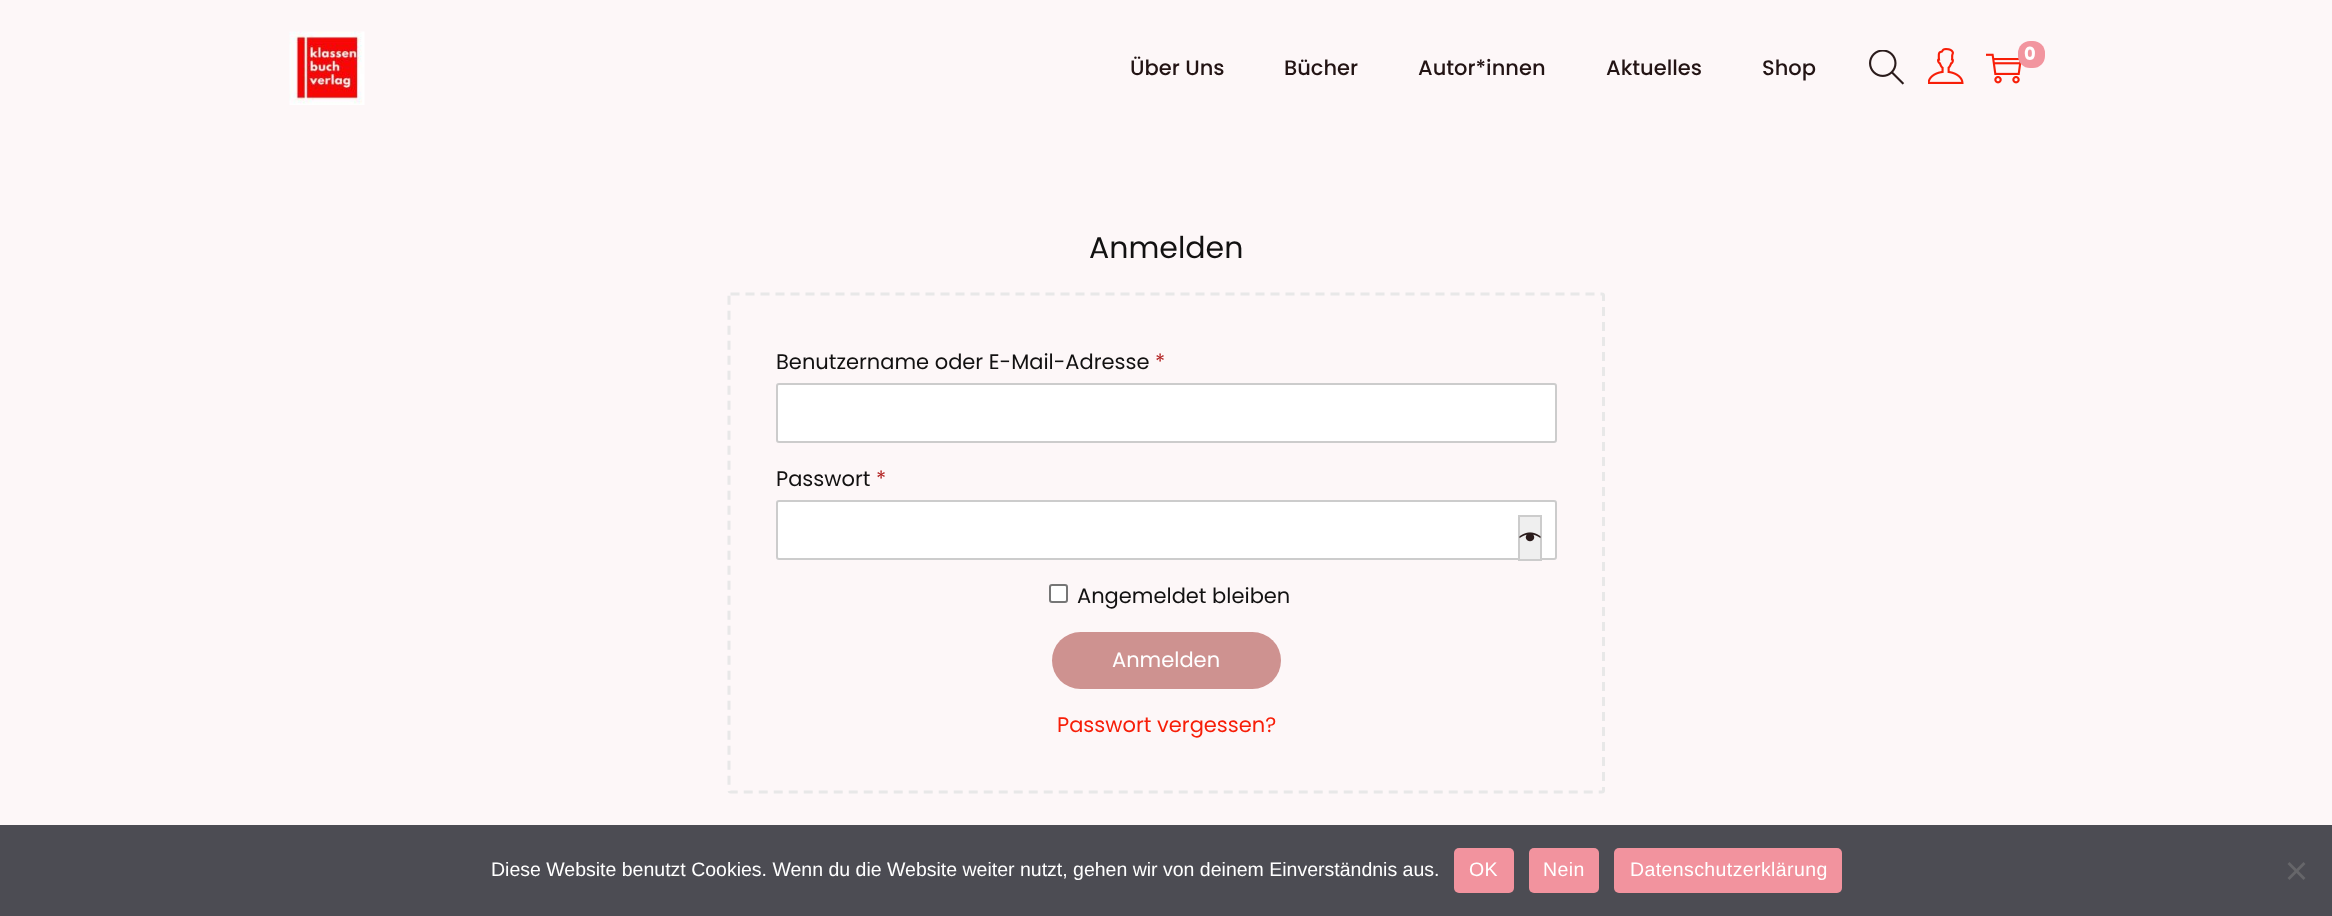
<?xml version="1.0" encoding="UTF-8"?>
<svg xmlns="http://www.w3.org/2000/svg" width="2332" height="916">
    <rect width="100%" height="100%" fill="#FDF7F8"/>
    <image x="289" y="31" width="76" height="74" href="img_01.png"/>
    <image x="1869" y="50" width="36" height="35" href="img_02.png"/>
    <image x="1928" y="48" width="36" height="36" href="img_03.png"/>
    <image x="1986" y="53" width="36" height="31" href="img_04.png"/>
    <rect x="2018" y="41" width="27" height="27" rx="12" fill="#F2959F"/>
    <text x="2024" y="60" font-family="Poppins" font-size="18" font-weight="700" fill="#FFFFFF">0</text>
    <text x="1130" y="75" font-family="Poppins" font-size="21" font-weight="500" fill="#231414">Über Uns</text>
    <text x="1284" y="75" font-family="Poppins" font-size="21" font-weight="500" fill="#231414">Bücher</text>
    <text x="1418" y="75" font-family="Poppins" font-size="21" font-weight="500" fill="#231414">Autor*innen</text>
    <text x="1606" y="75" font-family="Poppins" font-size="21" font-weight="500" fill="#231414">Aktuelles</text>
    <text x="1762" y="75" font-family="Poppins" font-size="21" font-weight="500" fill="#231414">Shop</text>
    <text x="1089" y="258" font-family="Poppins" font-size="30" fill="#121111">Anmelden</text>
    <path d="M 730.5 294 H 1602 C 1603 294 1603.5 294.5 1603.5 295.5 V 790.5 C 1603.5 791.5 1603 792 1602 792 H 730.5 C 729.5 792 729 791.5 729 790.5 V 295.5 C 729 294.5 729.5 294 730.5 294 Z" fill="none" stroke="#E8E8E8" stroke-width="3" stroke-dasharray="9 6"/>
    <text x="776" y="369" font-family="Poppins" font-size="21" fill="#121111">Benutzername oder E-Mail-Adresse</text>
    <text x="1155" y="369" font-family="Poppins" font-size="21" fill="#B22222">*</text>
    <rect x="777" y="384" width="779" height="58" rx="2" fill="#FFFFFF" stroke="#CCCCCC" stroke-width="2"/>
    <text x="776" y="486" font-family="Poppins" font-size="21" fill="#121111">Passwort</text>
    <text x="876" y="486" font-family="Poppins" font-size="21" fill="#B22222">*</text>
    <rect x="777" y="501" width="779" height="58" rx="2" fill="#FFFFFF" stroke="#CCCCCC" stroke-width="2"/>
    <rect x="1519" y="516" width="22" height="44" fill="#EFEFEF" stroke="#CCCCCC" stroke-width="2"/>
    <image x="1519" y="532" width="22" height="10" href="img_05.png"/>
    <rect x="1050" y="585" width="17" height="17" rx="2" fill="#FFFFFF" stroke="#767676" stroke-width="2"/>
    <text x="1077" y="603" font-family="Poppins" font-size="21" fill="#121111">Angemeldet bleiben</text>
    <rect x="1052" y="632" width="229" height="57" rx="28.5" fill="#CE9290"/>
    <text x="1112" y="667" font-family="Poppins" font-size="21" fill="#FFFFFF">Anmelden</text>
    <text x="1057" y="732" font-family="Poppins" font-size="21" fill="#F71E08">Passwort vergessen?</text>
    <rect x="0" y="825" width="2332" height="91" fill="#4C4C53"/>
    <text x="491" y="876" font-family="Liberation Sans" font-size="19.5" fill="#FFFFFF">Diese Website benutzt Cookies. Wenn du die Website weiter nutzt, gehen wir von deinem Einverständnis aus.</text>
    <rect x="1454" y="848" width="60" height="45" rx="5" fill="#F2939E"/>
    <text x="1469" y="876" font-family="Liberation Sans" font-size="19.5" letter-spacing="0.4" fill="#FFFFFF">OK</text>
    <rect x="1529" y="848" width="70" height="45" rx="5" fill="#F2939E"/>
    <text x="1543" y="876" font-family="Liberation Sans" font-size="19.5" letter-spacing="0.4" fill="#FFFFFF">Nein</text>
    <rect x="1614" y="848" width="228" height="45" rx="5" fill="#F2939E"/>
    <text x="1630" y="876" font-family="Liberation Sans" font-size="19.5" letter-spacing="0.4" fill="#FFFFFF">Datenschutzerklärung</text>
    <path d="M 2303.5 862 L 2305.5 864 L 2289.5 880 L 2287.5 878 Z" fill="#66666A"/>
    <path d="M 2287.5 864 L 2289.5 862 L 2305.5 878 L 2303.5 880 Z" fill="#66666A"/>
</svg>
